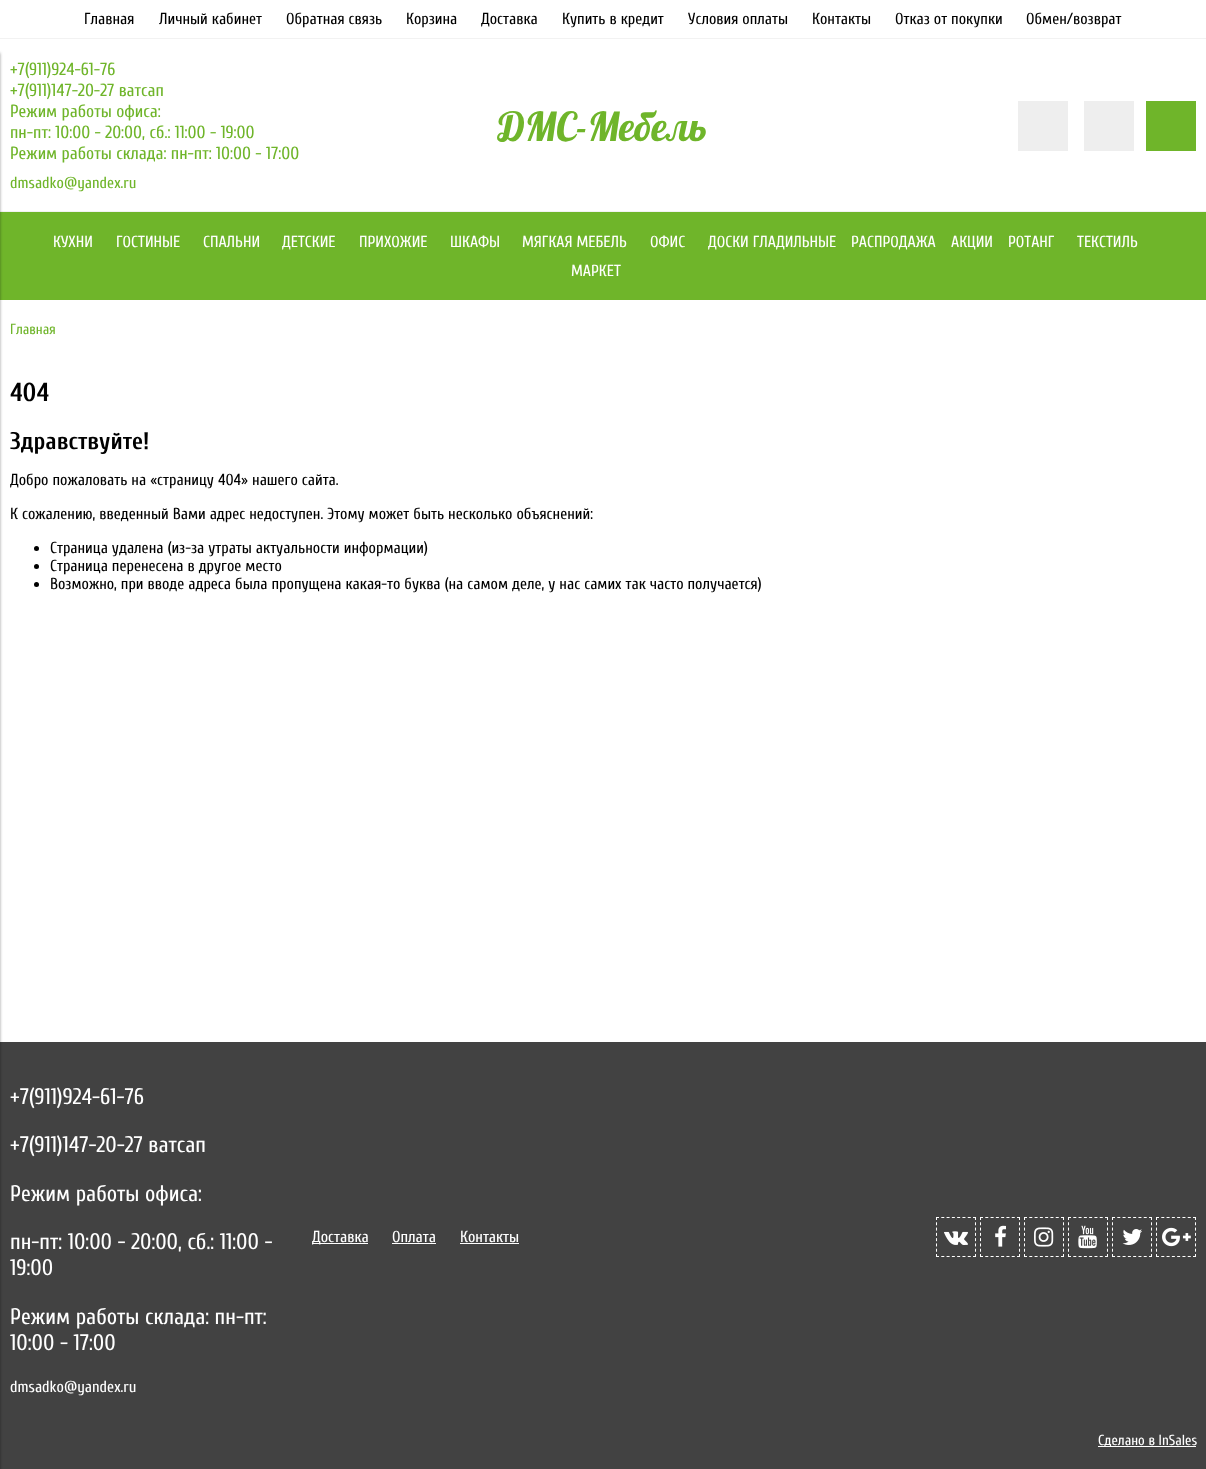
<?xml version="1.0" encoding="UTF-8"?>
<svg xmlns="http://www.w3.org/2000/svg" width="1206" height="1469">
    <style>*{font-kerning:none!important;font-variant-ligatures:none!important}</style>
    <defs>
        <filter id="blur1" x="-50%" y="-200%" width="200%" height="500%"><feGaussianBlur stdDeviation="1.5"/></filter>
    </defs>
    <rect width="100%" height="100%" fill="#424242"/>
    <rect x="0" y="0" width="1206" height="1042" fill="#FFFFFF"/>
    <rect x="0" y="211" width="1206" height="1" fill="#F2F2F2"/>
    <rect x="0" y="212" width="1206" height="88" fill="#6FB52A"/>
    <rect x="-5" y="53" width="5" height="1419" fill="#000000" fill-opacity="0.4" filter="url(#blur1)"/>
    <rect x="0" y="38" width="1206" height="1" fill="#F2F2F2"/>
    <text x="84" y="24" font-family="Cuprum" font-size="16" fill="#000000">Главная</text>
    <text x="159" y="24" font-family="Cuprum" font-size="16" fill="#000000">Личный кабинет</text>
    <text x="286" y="24" font-family="Cuprum" font-size="16" fill="#000000">Обратная связь</text>
    <text x="406" y="24" font-family="Cuprum" font-size="16" fill="#000000">Корзина</text>
    <text x="481" y="24" font-family="Cuprum" font-size="16" fill="#000000">Доставка</text>
    <text x="562" y="24" font-family="Cuprum" font-size="16" fill="#000000">Купить в кредит</text>
    <text x="688" y="24" font-family="Cuprum" font-size="16" fill="#000000">Условия оплаты</text>
    <text x="812" y="24" font-family="Cuprum" font-size="16" fill="#000000">Контакты</text>
    <text x="895" y="24" font-family="Cuprum" font-size="16" fill="#000000">Отказ от покупки</text>
    <text x="1026" y="24" font-family="Cuprum" font-size="16" fill="#000000">Обмен/возврат</text>
    <text font-family="Cuprum" font-size="17.6" fill="#6FB52A">
        <tspan x="10" y="75">+7(911)924-61-76</tspan>
        <tspan x="10" y="96">+7(911)147-20-27 ватсап</tspan>
        <tspan x="10" y="117">Режим работы офиса:</tspan>
        <tspan x="10" y="138">пн-пт: 10:00 - 20:00, сб.: 11:00 - 19:00</tspan>
        <tspan x="10" y="159">Режим работы склада: пн-пт: 10:00 - 17:00</tspan>
    </text>
    <text x="10" y="188" font-family="Cuprum" font-size="16" fill="#6FB52A">dmsadko@yandex.ru</text>
    <text x="498" y="141" font-family="Lobster" font-size="40" fill="#6FB52A">ДМС-Мебель</text>
    <rect x="1018" y="101" width="50" height="50" fill="#EEEEEE"/>
    <rect x="1084" y="101" width="50" height="50" fill="#EEEEEE"/>
    <rect x="1146" y="101" width="50" height="50" fill="#6FB52A"/>
    <text x="53" y="247" font-family="Cuprum" font-size="16" fill="#FFFFFF">КУХНИ</text>
    <text x="116" y="247" font-family="Cuprum" font-size="16" fill="#FFFFFF">ГОСТИНЫЕ</text>
    <text x="203" y="247" font-family="Cuprum" font-size="16" fill="#FFFFFF">СПАЛЬНИ</text>
    <text x="282" y="247" font-family="Cuprum" font-size="16" fill="#FFFFFF">ДЕТСКИЕ</text>
    <text x="359" y="247" font-family="Cuprum" font-size="16" fill="#FFFFFF">ПРИХОЖИЕ</text>
    <text x="450" y="247" font-family="Cuprum" font-size="16" fill="#FFFFFF">ШКАФЫ</text>
    <text x="522" y="247" font-family="Cuprum" font-size="16" fill="#FFFFFF">МЯГКАЯ МЕБЕЛЬ</text>
    <text x="650" y="247" font-family="Cuprum" font-size="16" fill="#FFFFFF">ОФИС</text>
    <text x="708" y="247" font-family="Cuprum" font-size="16" fill="#FFFFFF">ДОСКИ ГЛАДИЛЬНЫЕ</text>
    <text x="851" y="247" font-family="Cuprum" font-size="16" fill="#FFFFFF">РАСПРОДАЖА</text>
    <text x="951" y="247" font-family="Cuprum" font-size="16" fill="#FFFFFF">АКЦИИ</text>
    <text x="1008" y="247" font-family="Cuprum" font-size="16" fill="#FFFFFF">РОТАНГ</text>
    <text x="1077" y="247" font-family="Cuprum" font-size="16" fill="#FFFFFF">ТЕКСТИЛЬ</text>
    <text x="571" y="276" font-family="Cuprum" font-size="16" fill="#FFFFFF">МАРКЕТ</text>
    <text x="10" y="334" font-family="Cuprum" font-size="14.5" fill="#6FB52A">Главная</text>
    <text x="10" y="401" font-family="Cuprum" font-size="26" font-weight="700" fill="#000000">404</text>
    <text x="10" y="449" font-family="Cuprum" font-size="24" font-weight="700" fill="#000000">Здравствуйте!</text>
    <text x="10" y="485" font-family="Cuprum" font-size="16" fill="#000000">Добро пожаловать на «страницу 404» нашего сайта.</text>
    <text x="10" y="519" font-family="Cuprum" font-size="16" fill="#000000">К сожалению, введенный Вами адрес недоступен. Этому может быть несколько объяснений:</text>
    <circle cx="36.5" cy="548.5" r="2.5" fill="#000000"/>
    <text x="50" y="553" font-family="Cuprum" font-size="16" fill="#000000">Страница удалена (из-за утраты актуальности информации)</text>
    <circle cx="36.5" cy="566.5" r="2.5" fill="#000000"/>
    <text x="50" y="571" font-family="Cuprum" font-size="16" fill="#000000">Страница перенесена в другое место</text>
    <circle cx="36.5" cy="584.5" r="2.5" fill="#000000"/>
    <text x="50" y="589" font-family="Cuprum" font-size="16" fill="#000000">Возможно, при вводе адреса была пропущена какая-то буква (на самом деле, у нас самих так часто получается)</text>
    <text x="10" y="1104" font-family="Cuprum" font-size="22.4" fill="#FFFFFF">+7(911)924-61-76</text>
    <text x="10" y="1152" font-family="Cuprum" font-size="22.4" fill="#FFFFFF">+7(911)147-20-27 ватсап</text>
    <text x="10" y="1201" font-family="Cuprum" font-size="22.4" fill="#FFFFFF">Режим работы офиса:</text>
    <text font-family="Cuprum" font-size="22.4" fill="#FFFFFF">
        <tspan x="10" y="1249">пн-пт: 10:00 - 20:00, сб.: 11:00 -</tspan>
        <tspan x="10" y="1275">19:00</tspan>
    </text>
    <text font-family="Cuprum" font-size="22.4" fill="#FFFFFF">
        <tspan x="10" y="1324">Режим работы склада: пн-пт:</tspan>
        <tspan x="10" y="1350">10:00 - 17:00</tspan>
    </text>
    <text x="10" y="1392" font-family="Cuprum" font-size="16" fill="#FFFFFF">dmsadko@yandex.ru</text>
    <rect x="312" y="1243" width="56" height="1" fill="#FFFFFF"/>
    <text x="312" y="1242" font-family="Cuprum" font-size="16" fill="#FFFFFF">Доставка</text>
    <text x="392" y="1242" font-family="Cuprum" font-size="16" fill="#FFFFFF">Оплата</text>
    <rect x="392" y="1243" width="44" height="1" fill="#FFFFFF"/>
    <text x="460" y="1242" font-family="Cuprum" font-size="16" fill="#FFFFFF">Контакты</text>
    <rect x="460" y="1243" width="59" height="1" fill="#FFFFFF"/>
    <path d="M 936 1217.5 H 976 M 975.5 1217 V 1257 M 936 1256.5 H 976 M 936.5 1217 V 1257" fill="none" stroke="#FFFFFF" stroke-dasharray="3 2.29"/>
    <image x="944" y="1231" width="24" height="14" href="img_01.png"/>
    <path d="M 980 1217.5 H 1020 M 1019.5 1217 V 1257 M 980 1256.5 H 1020 M 980.5 1217 V 1257" fill="none" stroke="#FFFFFF" stroke-dasharray="3 2.29"/>
    <image x="995" y="1225" width="11" height="22" href="img_02.png"/>
    <path d="M 1024 1217.5 H 1064 M 1063.5 1217 V 1257 M 1024 1256.5 H 1064 M 1024.5 1217 V 1257" fill="none" stroke="#FFFFFF" stroke-dasharray="3 2.29"/>
    <image x="1034" y="1227" width="20" height="20" href="img_03.png"/>
    <path d="M 1068 1217.5 H 1108 M 1107.5 1217 V 1257 M 1068 1256.5 H 1108 M 1068.5 1217 V 1257" fill="none" stroke="#FFFFFF" stroke-dasharray="3 2.29"/>
    <image x="1078" y="1225" width="19" height="24" href="img_04.png"/>
    <path d="M 1112 1217.5 H 1152 M 1151.5 1217 V 1257 M 1112 1256.5 H 1152 M 1112.5 1217 V 1257" fill="none" stroke="#FFFFFF" stroke-dasharray="3 2.29"/>
    <image x="1122" y="1229" width="20" height="16" href="img_05.png"/>
    <path d="M 1156 1217.5 H 1196 M 1195.5 1217 V 1257 M 1156 1256.5 H 1196 M 1156.5 1217 V 1257" fill="none" stroke="#FFFFFF" stroke-dasharray="3 2.29"/>
    <image x="1162" y="1227" width="29" height="20" href="img_06.png"/>
    <rect x="1098" y="1446" width="98" height="1" fill="#FFFFFF"/>
    <text x="1098" y="1445" font-family="Cuprum" font-size="14.5" fill="#FFFFFF">Сделано в InSales</text>
</svg>
